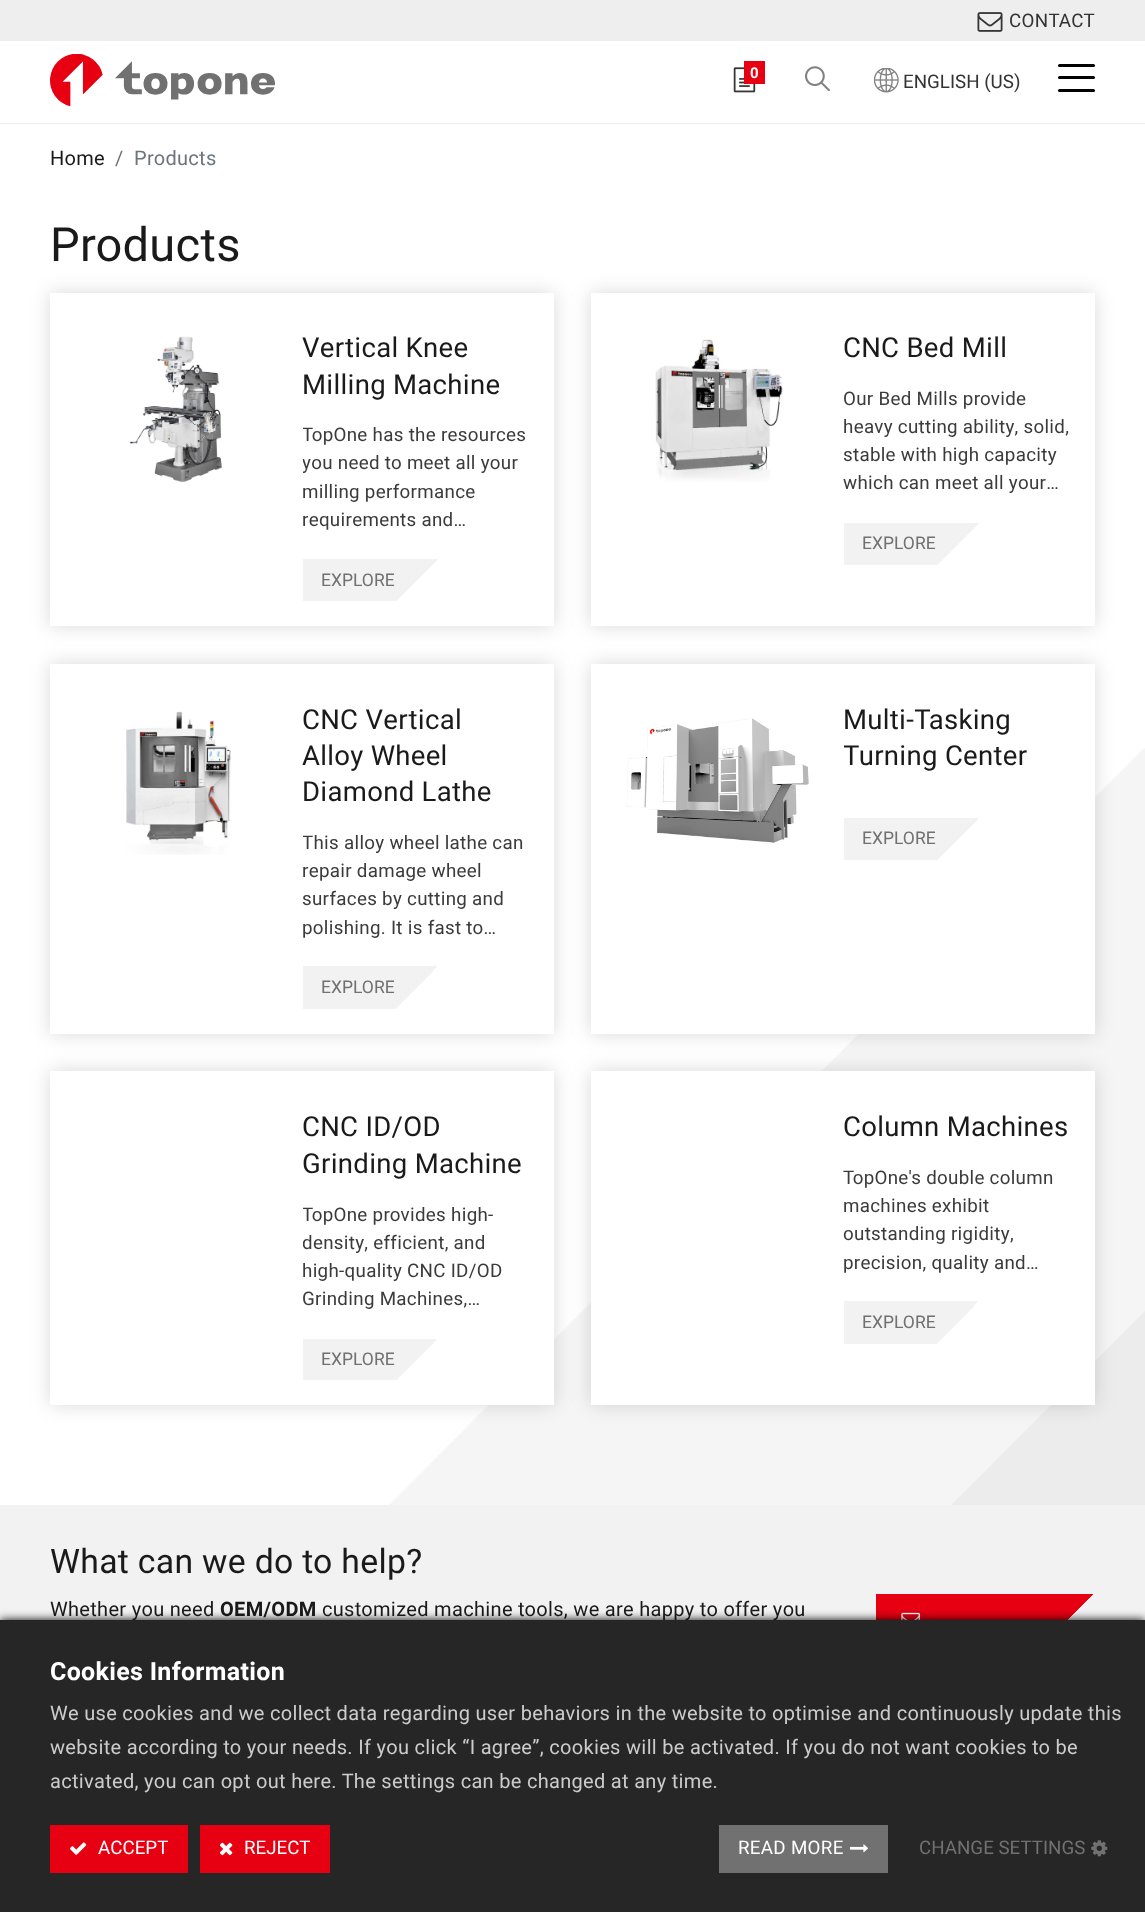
<?xml version="1.0" encoding="UTF-8"?>
<svg xmlns="http://www.w3.org/2000/svg" width="1145" height="1912">
    <defs>
        <filter id="blur1" x="-50%" y="-200%" width="200%" height="500%"><feGaussianBlur stdDeviation="9.5"/></filter>
        <clipPath id="clip1"><rect x="303" y="421" width="226" height="113"/></clipPath>
        <linearGradient id="g1" gradientUnits="userSpaceOnUse" x1="419" y1="626" x2="327" y2="534"><stop offset="0.26" stop-color="#FFFFFF"/><stop offset="0.26" stop-color="#F2F2F2"/></linearGradient>
        <linearGradient id="g2" gradientUnits="userSpaceOnUse" x1="960" y1="590" x2="868" y2="498"><stop offset="0.26" stop-color="#FFFFFF"/><stop offset="0.26" stop-color="#F2F2F2"/></linearGradient>
        <clipPath id="clip2"><rect x="303" y="829" width="226" height="112"/></clipPath>
        <linearGradient id="g3" gradientUnits="userSpaceOnUse" x1="419" y1="1033" x2="327" y2="942"><stop offset="0.26" stop-color="#FFFFFF"/><stop offset="0.26" stop-color="#F2F2F2"/></linearGradient>
        <clipPath id="clip3"><rect x="844" y="664" width="251" height="222"/></clipPath>
        <linearGradient id="g4" gradientUnits="userSpaceOnUse" x1="960" y1="885" x2="868" y2="793"><stop offset="0.26" stop-color="#FFFFFF"/><stop offset="0.26" stop-color="#F2F2F2"/></linearGradient>
        <clipPath id="clip4"><rect x="303" y="1201" width="226" height="113"/></clipPath>
        <linearGradient id="g5" gradientUnits="userSpaceOnUse" x1="419" y1="1405" x2="328" y2="1314"><stop offset="0.26" stop-color="#FFFFFF"/><stop offset="0.26" stop-color="#F2F2F2"/></linearGradient>
        <linearGradient id="g6" gradientUnits="userSpaceOnUse" x1="960" y1="1368" x2="868" y2="1277"><stop offset="0.26" stop-color="#FFFFFF"/><stop offset="0.26" stop-color="#F2F2F2"/></linearGradient>
        <linearGradient id="g7" gradientUnits="userSpaceOnUse" x1="1053" y1="1688" x2="918" y2="1552"><stop offset="0.2" stop-color="#F2F2F2"/><stop offset="0.2" stop-color="#E60012"/></linearGradient>
        <filter id="blur2" x="-50%" y="-200%" width="200%" height="500%"><feGaussianBlur stdDeviation="5"/></filter>
    </defs>
    <rect width="100%" height="100%" fill="#FFFFFF"/>
    <rect x="0" y="123" width="1145" height="1" fill="#EEEEEE"/>
    <rect x="0" y="0" width="1145" height="41" fill="#EEEEEE"/>
    <image x="977" y="12" width="26" height="20" href="img_01.png"/>
    <text x="1009" y="27" font-family="Heebo" font-size="18.75" letter-spacing="0.3" fill="#333333">CONTACT</text>
    <image x="50" y="54" width="225" height="52" href="img_02.png"/>
    <image x="733" y="67" width="23" height="26" href="img_03.png"/>
    <rect x="744" y="61" width="21" height="23" fill="#E60012"/>
    <text x="750" y="78" font-family="Heebo" font-size="15" font-weight="700" letter-spacing="0.3" fill="#FFFFFF">0</text>
    <image x="805" y="66" width="25" height="25" href="img_04.png"/>
    <image x="874" y="68" width="25" height="25" href="img_05.png"/>
    <text x="903" y="88" font-family="Heebo" font-size="18.75" fill="#333333">ENGLISH (US)</text>
    <rect x="1058" y="64" width="37" height="3" rx="1.5" fill="#000000"/>
    <rect x="1058" y="76" width="37" height="3" rx="1.5" fill="#000000"/>
    <rect x="1058" y="89" width="37" height="3" rx="1.5" fill="#000000"/>
    <image x="389" y="748" width="756" height="757" href="img_06.png"/>
    <text x="50" y="165" font-family="Heebo" font-size="20" letter-spacing="0.3" fill="#1A1A1A">Home</text>
    <text x="115" y="165" font-family="Heebo" font-size="20" letter-spacing="0.3" fill="#6C757D">/</text>
    <text x="134" y="165" font-family="Heebo" font-size="20" letter-spacing="0.3" fill="#6C757D">Products</text>
    <text x="50" y="261" font-family="Heebo" font-size="47" letter-spacing="0.3" fill="#1A1A1A">Products</text>
    <rect x="50" y="293" width="504" height="333" fill="#000000" fill-opacity="0.15" filter="url(#blur1)"/>
    <rect x="50" y="293" width="504" height="333" fill="#FFFFFF"/>
    <image x="129" y="336" width="93" height="147" href="img_07.png"/>
    <text font-family="Heebo" font-size="27.5" letter-spacing="0.3" fill="#1A1A1A">
        <tspan x="302" y="357">Vertical Knee</tspan>
        <tspan x="302" y="394">Milling Machine</tspan>
    </text>
    <g clip-path="url(#clip1)">
        <text font-family="Heebo" font-size="18.75" letter-spacing="0.3" fill="#3B3B3B">
            <tspan x="302" y="441">TopOne has the resources</tspan>
            <tspan x="302" y="469">you need to meet all your</tspan>
        </text>
    </g>
    <text font-family="Heebo" font-size="18.75" letter-spacing="0.3" fill="#3B3B3B">
        <tspan x="302" y="498">milling performance</tspan>
        <tspan x="302" y="526">requirements and…</tspan>
    </text>
    <rect x="303" y="559" width="135" height="42" fill="url(#g1)"/>
    <text x="321" y="586" font-family="Heebo" font-size="17.5" fill="#727171">EXPLORE</text>
    <rect x="591" y="293" width="504" height="333" fill="#000000" fill-opacity="0.15" filter="url(#blur1)"/>
    <rect x="591" y="293" width="504" height="333" fill="#FFFFFF"/>
    <image x="655" y="339" width="128" height="143" href="img_08.png"/>
    <text x="843" y="357" font-family="Heebo" font-size="27.5" letter-spacing="0.3" fill="#1A1A1A">CNC Bed Mill</text>
    <text font-family="Heebo" font-size="18.75" letter-spacing="0.3" fill="#3B3B3B">
        <tspan x="843" y="405">Our Bed Mills provide</tspan>
        <tspan x="843" y="433">heavy cutting ability, solid,</tspan>
        <tspan x="843" y="461">stable with high capacity</tspan>
        <tspan x="843" y="489">which can meet all your…</tspan>
    </text>
    <rect x="844" y="523" width="135" height="42" fill="url(#g2)"/>
    <text x="862" y="549" font-family="Heebo" font-size="17.5" fill="#727171">EXPLORE</text>
    <rect x="50" y="664" width="504" height="370" fill="#000000" fill-opacity="0.15" filter="url(#blur1)"/>
    <rect x="50" y="664" width="504" height="370" fill="#FFFFFF"/>
    <image x="126" y="711" width="105" height="144" href="img_09.png"/>
    <text font-family="Heebo" font-size="27.5" letter-spacing="0.3" fill="#1A1A1A">
        <tspan x="302" y="729">CNC Vertical</tspan>
        <tspan x="302" y="765">Alloy Wheel</tspan>
        <tspan x="302" y="801">Diamond Lathe</tspan>
    </text>
    <g clip-path="url(#clip2)">
        <text x="302" y="849" font-family="Heebo" font-size="18.75" letter-spacing="0.3" fill="#3B3B3B">This alloy wheel lathe can</text>
    </g>
    <text font-family="Heebo" font-size="18.75" letter-spacing="0.3" fill="#3B3B3B">
        <tspan x="302" y="877">repair damage wheel</tspan>
        <tspan x="302" y="905">surfaces by cutting and</tspan>
        <tspan x="302" y="934">polishing. It is fast to…</tspan>
    </text>
    <rect x="303" y="966" width="134" height="43" fill="url(#g3)"/>
    <text x="321" y="993" font-family="Heebo" font-size="17.5" fill="#727171">EXPLORE</text>
    <rect x="591" y="664" width="504" height="370" fill="#000000" fill-opacity="0.15" filter="url(#blur1)"/>
    <rect x="591" y="664" width="504" height="370" fill="#FFFFFF"/>
    <image x="626" y="718" width="183" height="125" href="img_10.png"/>
    <text x="843" y="729" font-family="Heebo" font-size="27.5" letter-spacing="0.3" fill="#1A1A1A">Multi-Tasking</text>
    <g clip-path="url(#clip3)">
        <text x="843" y="765" font-family="Heebo" font-size="27.5" letter-spacing="0.3" fill="#1A1A1A">Turning Center</text>
    </g>
    <rect x="844" y="818" width="135" height="42" fill="url(#g4)"/>
    <text x="862" y="844" font-family="Heebo" font-size="17.5" fill="#727171">EXPLORE</text>
    <rect x="50" y="1071" width="504" height="334" fill="#000000" fill-opacity="0.15" filter="url(#blur1)"/>
    <rect x="50" y="1071" width="504" height="334" fill="#FFFFFF"/>
    <text font-family="Heebo" font-size="27.5" letter-spacing="0.3" fill="#1A1A1A">
        <tspan x="302" y="1136">CNC ID/OD</tspan>
        <tspan x="302" y="1173">Grinding Machine</tspan>
    </text>
    <g clip-path="url(#clip4)">
        <text font-family="Heebo" font-size="18.75" letter-spacing="0.3" fill="#3B3B3B">
            <tspan x="302" y="1221">TopOne provides high-</tspan>
            <tspan x="302" y="1249">density, efficient, and</tspan>
        </text>
    </g>
    <text font-family="Heebo" font-size="18.75" letter-spacing="0.3" fill="#3B3B3B">
        <tspan x="302" y="1277">high-quality CNC ID/OD</tspan>
        <tspan x="302" y="1305">Grinding Machines,…</tspan>
    </text>
    <rect x="303" y="1339" width="134" height="41" fill="url(#g5)"/>
    <text x="321" y="1365" font-family="Heebo" font-size="17.5" fill="#727171">EXPLORE</text>
    <rect x="591" y="1071" width="504" height="334" fill="#000000" fill-opacity="0.15" filter="url(#blur1)"/>
    <rect x="591" y="1071" width="504" height="334" fill="#FFFFFF"/>
    <text x="843" y="1136" font-family="Heebo" font-size="27.5" letter-spacing="0.3" fill="#1A1A1A">Column Machines</text>
    <text font-family="Heebo" font-size="18.75" letter-spacing="0.3" fill="#3B3B3B">
        <tspan x="843" y="1184">TopOne's double column</tspan>
        <tspan x="843" y="1212">machines exhibit</tspan>
        <tspan x="843" y="1240">outstanding rigidity,</tspan>
        <tspan x="843" y="1269">precision, quality and…</tspan>
    </text>
    <rect x="844" y="1301" width="134" height="43" fill="url(#g6)"/>
    <text x="862" y="1328" font-family="Heebo" font-size="17.5" fill="#727171">EXPLORE</text>
    <rect x="0" y="1505" width="1145" height="115" fill="#F2F2F2"/>
    <text x="50" y="1573" font-family="Heebo" font-size="33.75" letter-spacing="0.3" fill="#1A1A1A">What can we do to help?</text>
    <text x="50" y="1616" font-family="Heebo" font-size="20" letter-spacing="0.3" fill="#1A1A1A">Whether you need</text>
    <text x="220" y="1616" font-family="Heebo" font-size="20" font-weight="700" letter-spacing="0.3" fill="#1A1A1A">OEM/ODM</text>
    <text x="322" y="1616" font-family="Heebo" font-size="20" letter-spacing="0.3" fill="#1A1A1A">customized machine tools, we are happy to offer you</text>
    <rect x="876" y="1594" width="217" height="26" fill="url(#g7)"/>
    <image x="901" y="1612" width="19" height="8" href="img_11.png"/>
    <rect x="0" y="1620" width="1145" height="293" fill="#000000" filter="url(#blur2)"/>
    <rect x="0" y="1620" width="1145" height="292" fill="#262626"/>
    <text x="50" y="1680" font-family="Heebo" font-size="25" font-weight="700" letter-spacing="0.3" fill="#FFFFFF">Cookies Information</text>
    <text font-family="Heebo" font-size="20" letter-spacing="0.3" fill="#CCCCCC">
        <tspan x="50" y="1720">We use cookies and we collect data regarding user behaviors in the website to optimise and continuously update this</tspan>
        <tspan x="50" y="1754">website according to your needs. If you click “I agree”, cookies will be activated. If you do not want cookies to be</tspan>
        <tspan x="50" y="1788">activated, you can opt out here. The settings can be changed at any time.</tspan>
    </text>
    <rect x="50" y="1825" width="138" height="48" fill="#E60012"/>
    <image x="70" y="1842" width="17" height="13" href="img_12.png"/>
    <text x="98" y="1854" font-family="Heebo" font-size="18.75" fill="#FFFFFF">ACCEPT</text>
    <rect x="200" y="1825" width="130" height="48" fill="#E60012"/>
    <image x="219" y="1842" width="14" height="14" href="img_13.png"/>
    <text x="244" y="1854" font-family="Heebo" font-size="18.75" fill="#FFFFFF">REJECT</text>
    <rect x="719" y="1825" width="169" height="48" fill="#727171"/>
    <text x="738" y="1854" font-family="Heebo" font-size="18.75" letter-spacing="0.3" fill="#FFFFFF">READ MORE</text>
    <image x="850" y="1844" width="18" height="9" href="img_14.png"/>
    <text x="919" y="1854" font-family="Heebo" font-size="18.75" fill="#727171">CHANGE SETTINGS</text>
    <image x="1091" y="1840" width="17" height="17" href="img_15.png"/>
</svg>
